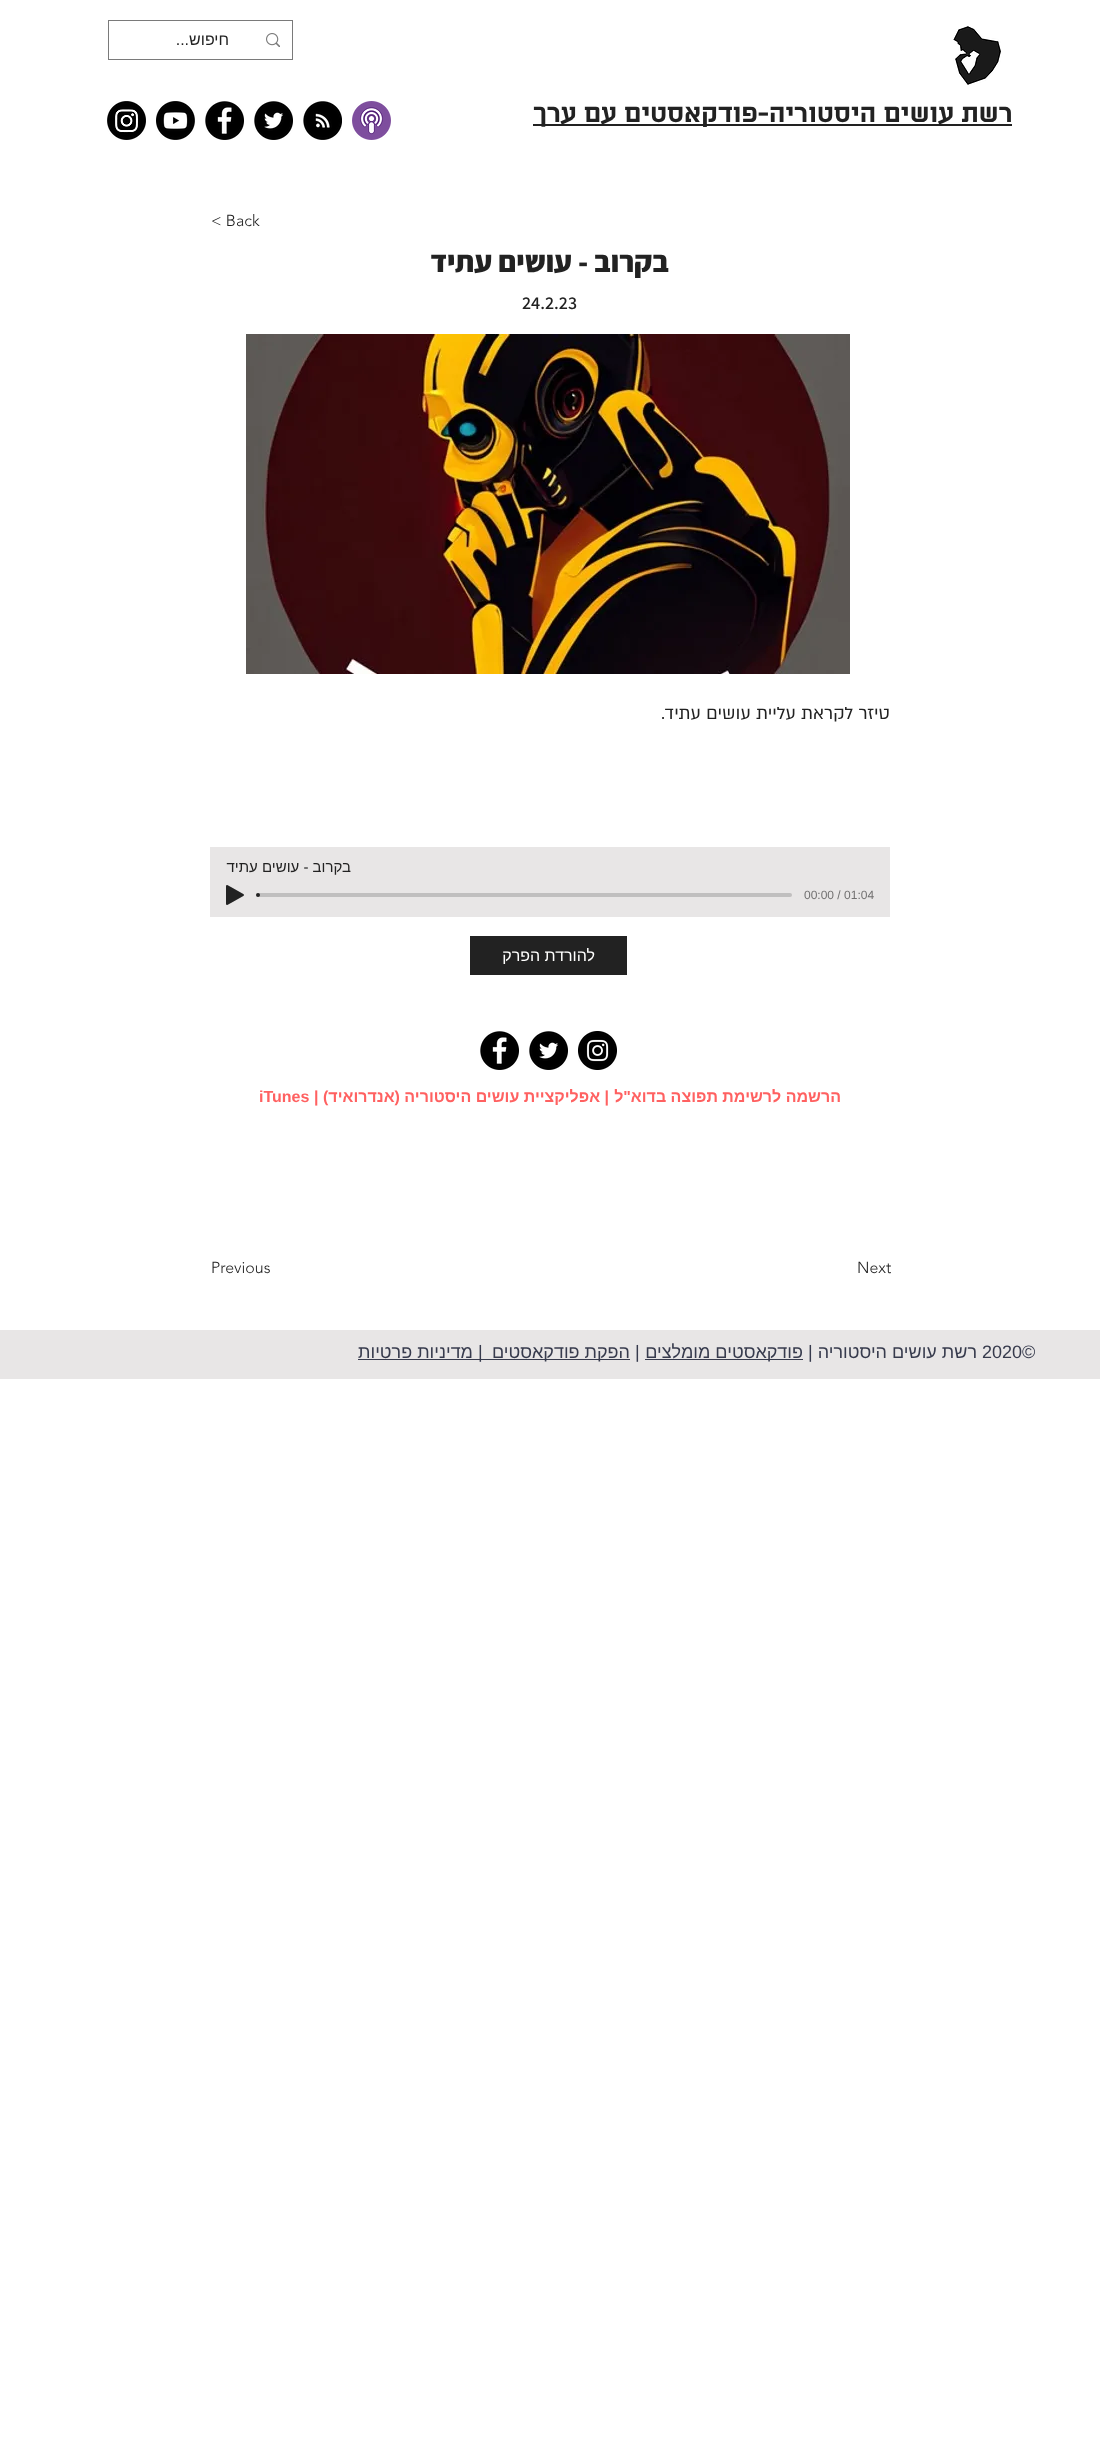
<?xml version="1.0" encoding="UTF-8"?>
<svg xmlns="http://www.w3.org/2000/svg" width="1100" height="2457">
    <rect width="100%" height="100%" fill="#FFFFFF"/>
    <image x="953" y="26" width="48" height="59" href="img_01.png"/>
    <rect x="108.5" y="20.5" width="184" height="39" fill="none" stroke="#7A7A7A"/>
    <image x="266" y="33" width="14" height="14" href="img_02.png"/>
    <text x="229" y="45" font-family="Liberation Sans" font-size="16" direction="rtl" fill="#222222">חיפוש...</text>
    <rect x="533" y="124" width="479" height="2" fill="#222222"/>
    <text x="1012" y="122" font-family="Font" font-size="28" font-weight="700" direction="rtl" fill="#222222">רשת עושים היסטוריה-פודקאסטים עם ערך</text>
    <image x="352" y="101" width="39" height="39" href="img_03.png"/>
    <image x="303" y="101" width="39" height="39" href="img_04.png"/>
    <image x="254" y="101" width="39" height="39" href="img_05.png"/>
    <image x="205" y="101" width="39" height="39" href="img_06.png"/>
    <image x="156" y="101" width="39" height="39" href="img_07.png"/>
    <image x="107" y="101" width="39" height="39" href="img_08.png"/>
    <text x="211" y="226" font-family="'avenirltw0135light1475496'" font-size="16" font-weight="300" fill="#222222">&lt; Back</text>
    <text x="669" y="272" font-family="Assistant" font-size="30" font-weight="800" direction="rtl" fill="#222222">בקרוב - עושים עתיד</text>
    <text x="522" y="309" font-family="Assistant" font-size="18" font-weight="600" fill="#222222">24.2.23</text>
    <image x="246" y="334" width="604" height="340" href="img_09.png"/>
    <text x="890" y="719" font-family="'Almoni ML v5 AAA'" font-size="20" direction="rtl" fill="#222222">טיזר לקראת עליית עושים עתיד.</text>
    <rect x="210" y="847" width="680" height="70" fill="#E8E6E6"/>
    <text x="351" y="872" font-family="Liberation Sans" font-size="15" direction="rtl" fill="#222222">בקרוב - עושים עתיד</text>
    <text x="804" y="899" font-family="Liberation Sans" font-size="12" fill="#717070">00:00 / 01:04</text>
    <rect x="258" y="893" width="534" height="4" rx="2" fill="#C0BFBF"/>
    <circle cx="258" cy="895" r="2" fill="#222222"/>
    <image x="226" y="885" width="18" height="20" href="img_10.png"/>
    <rect x="470" y="936" width="157" height="39" fill="#222222"/>
    <text x="595" y="961" font-family="Liberation Sans" font-size="16" direction="rtl" fill="#FFFFFE">להורדת הפרק</text>
    <image x="578" y="1031" width="39" height="39" href="img_11.png"/>
    <image x="529" y="1031" width="39" height="39" href="img_05.png"/>
    <image x="480" y="1031" width="39" height="39" href="img_06.png"/>
    <text x="841" y="1102" font-family="Liberation Sans" font-size="16" font-weight="700" direction="rtl" fill="#FF6161">הרשמה לרשימת תפוצה בדוא"ל</text>
    <text x="609" y="1102" font-family="Liberation Sans" font-size="16" font-weight="700" direction="rtl" fill="#FF6161">| אפליקציית עושים היסטוריה (אנדרואיד) |</text>
    <text x="259" y="1102" font-family="Liberation Sans" font-size="16" font-weight="700" fill="#FF6161">iTunes</text>
    <text x="857" y="1273" font-family="'avenirltw0135light1475496'" font-size="16" font-weight="300" fill="#222222">Next</text>
    <text x="211" y="1273" font-family="'avenirltw0135light1475496'" font-size="16" font-weight="300" fill="#222222">Previous</text>
    <rect x="0" y="1330" width="1100" height="49" fill="#E8E6E6"/>
    <text x="982" y="1358" font-family="Liberation Sans" font-size="18" fill="#373B4D">2020©</text>
    <text x="977" y="1358" font-family="Liberation Sans" font-size="18" direction="rtl" fill="#373B4D">רשת עושים היסטוריה |</text>
    <rect x="645" y="1359" width="158" height="1" fill="#373B4D"/>
    <text x="803" y="1358" font-family="Liberation Sans" font-size="18" direction="rtl" fill="#373B4D">פודקאסטים מומלצים</text>
    <text x="635" y="1358" font-family="Liberation Sans" font-size="18" fill="#373B4D">|</text>
    <rect x="358" y="1359" width="272" height="1" fill="#373B4D"/>
    <text x="630" y="1358" font-family="Liberation Sans" font-size="18" direction="rtl" fill="#373B4D">הפקת פודקאסטים</text>
    <text x="478" y="1358" font-family="Liberation Sans" font-size="18" fill="#373B4D">|</text>
    <text x="473" y="1358" font-family="Liberation Sans" font-size="18" direction="rtl" fill="#373B4D">מדיניות פרטיות</text>
</svg>
